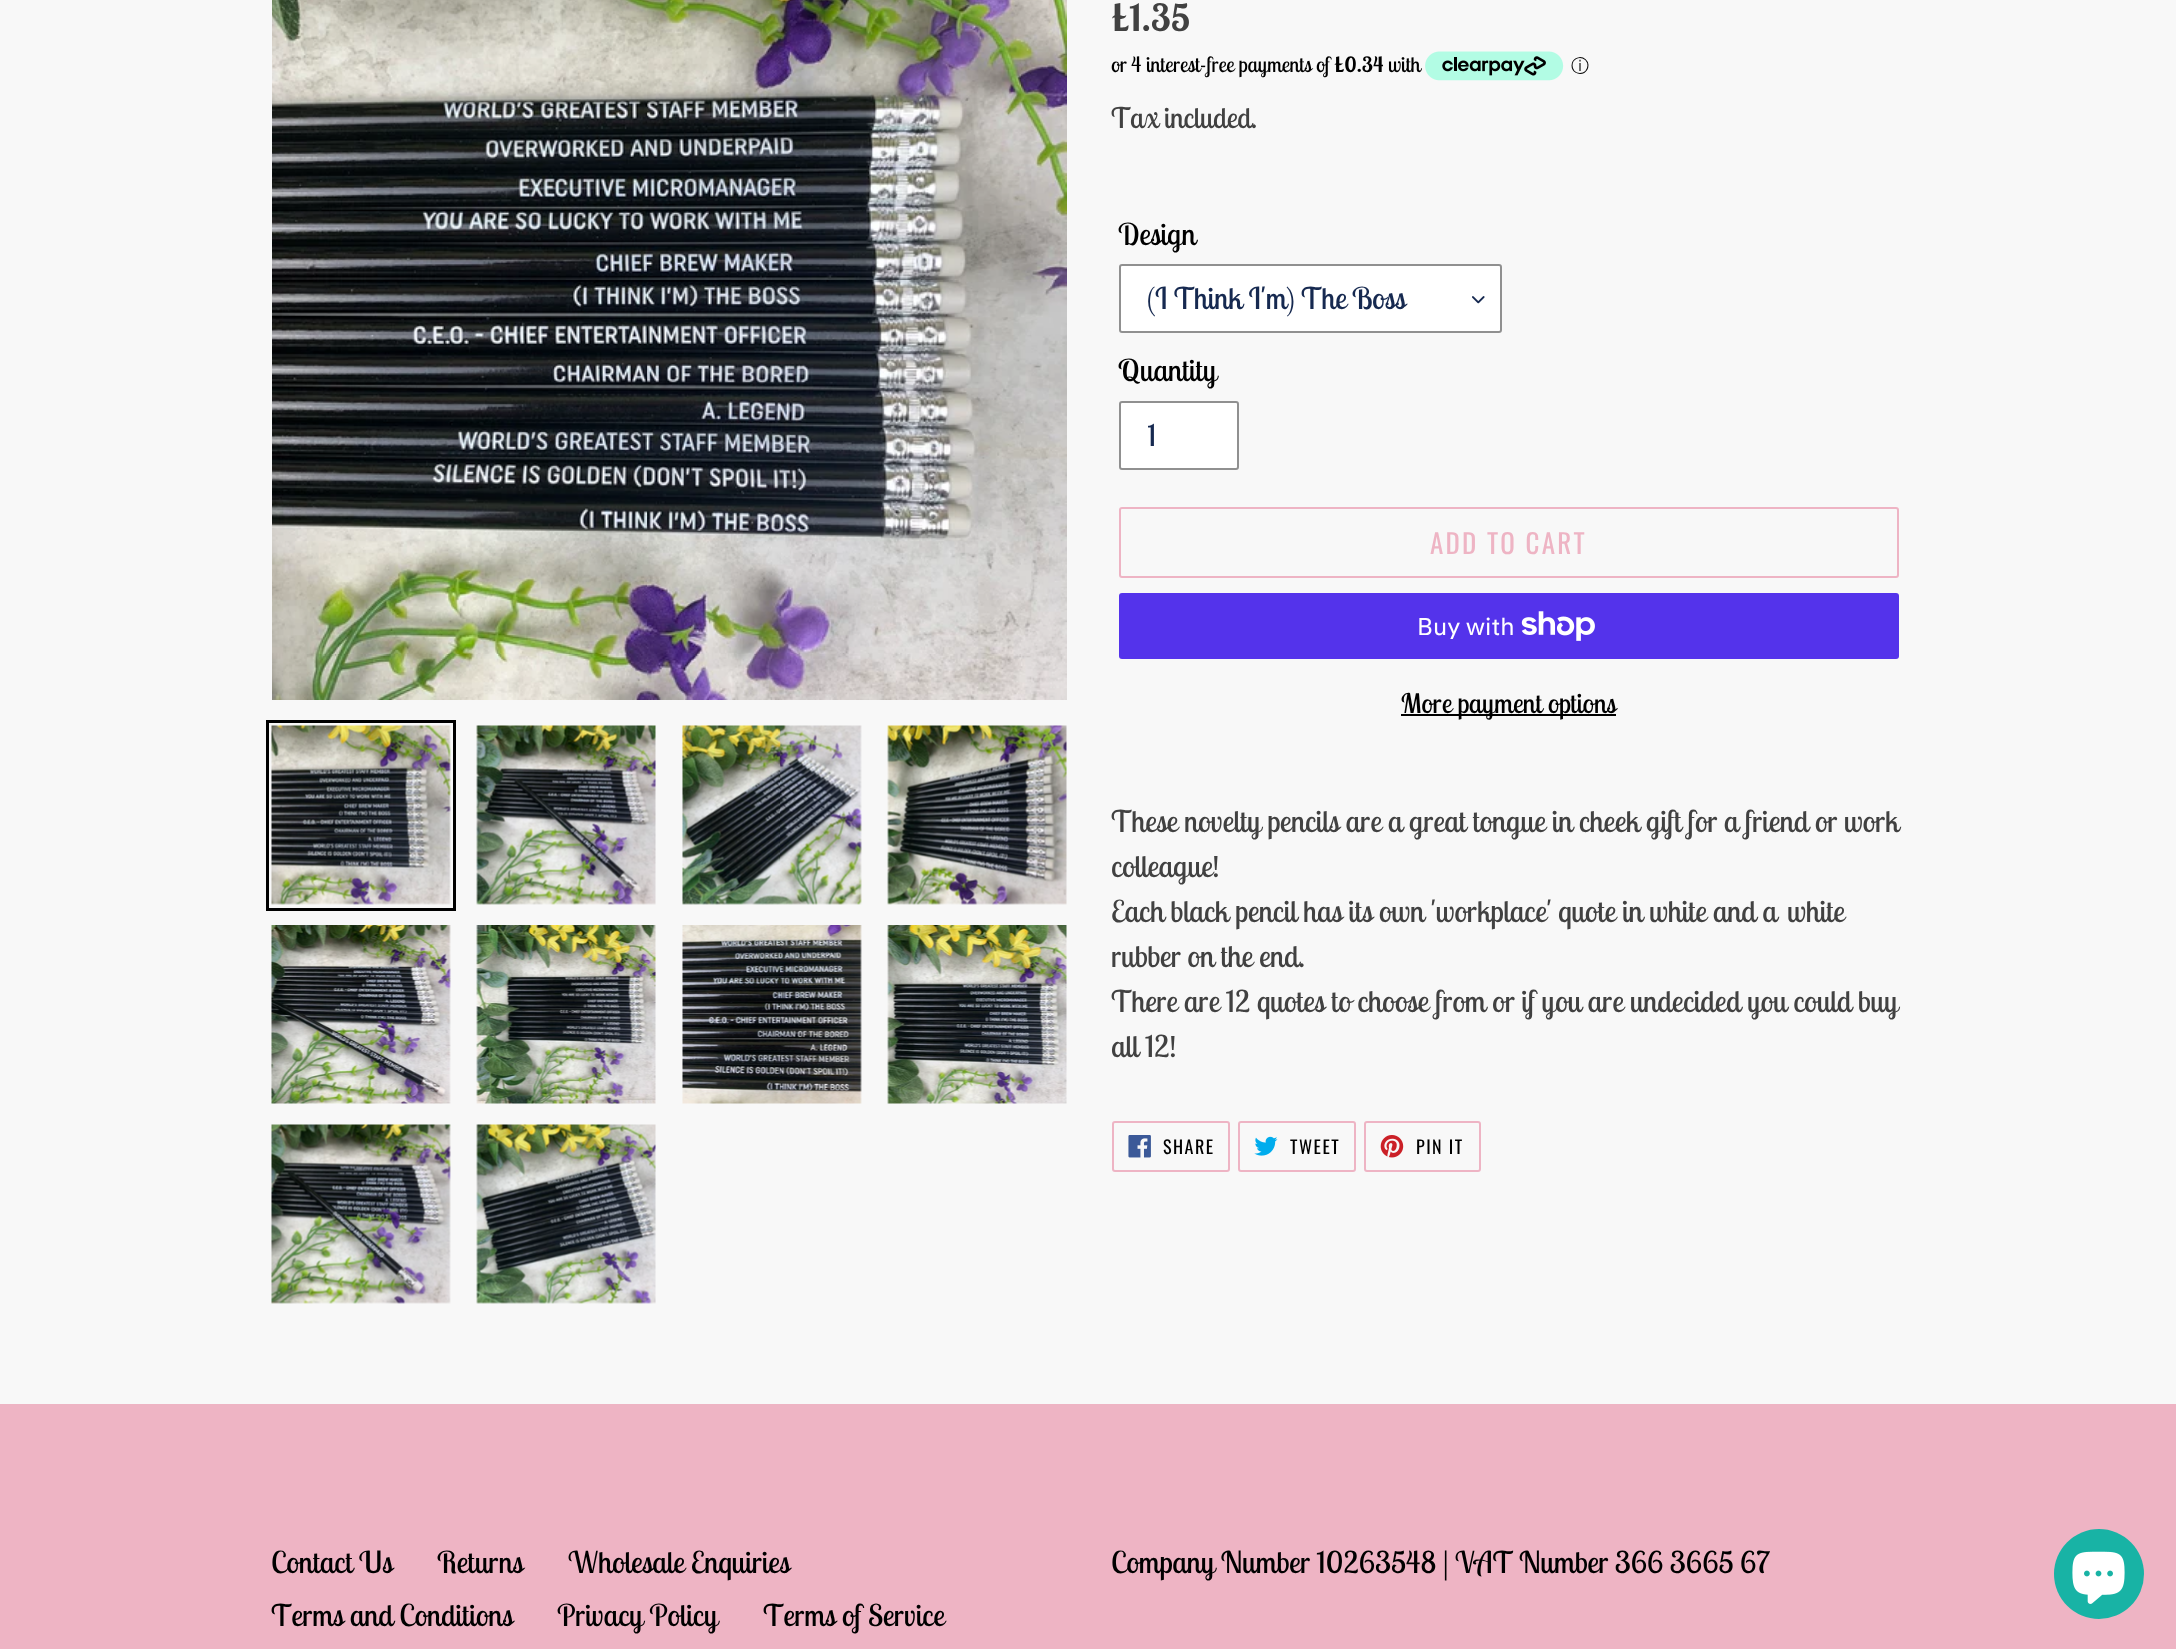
<?xml version="1.0" encoding="UTF-8"?>
<svg xmlns="http://www.w3.org/2000/svg" width="2176" height="1649">
    <style>*{font-kerning:none!important;font-variant-ligatures:none!important}</style>
    <defs>
        <clipPath id="clip1"><rect x="1148" y="281" width="310" height="36"/></clipPath>
        <clipPath id="clip2"><rect x="1148" y="417" width="40" height="36"/></clipPath>
    </defs>
    <rect width="100%" height="100%" fill="#F8F8F8"/>
    <image x="272" y="0" width="795" height="700" href="img_01.png"/>
    <rect x="267.5" y="721.5" width="187" height="188" fill="none" stroke="#000000" stroke-width="3"/>
    <image x="271" y="725" width="180" height="180" href="img_02.png"/>
    <image x="476" y="725" width="180" height="180" href="img_03.png"/>
    <image x="682" y="725" width="180" height="180" href="img_04.png"/>
    <image x="887" y="725" width="180" height="180" href="img_05.png"/>
    <image x="271" y="925" width="180" height="179" href="img_06.png"/>
    <image x="476" y="925" width="180" height="179" href="img_07.png"/>
    <image x="682" y="925" width="180" height="179" href="img_08.png"/>
    <image x="887" y="925" width="180" height="179" href="img_09.png"/>
    <image x="271" y="1124" width="180" height="180" href="img_10.png"/>
    <image x="476" y="1124" width="180" height="180" href="img_11.png"/>
    <text x="1111" y="31" font-family="Lobster Two" font-size="37.5" font-weight="700" fill="#414141">£1.35</text>
    <text x="1111" y="72" font-family="Lobster Two" font-size="21" fill="#000000">or 4 interest-free payments of</text>
    <text x="1334" y="72" font-family="Lobster Two" font-size="21" font-weight="700" fill="#000000">£0.34</text>
    <text x="1388" y="72" font-family="Lobster Two" font-size="21" fill="#000000">with</text>
    <image x="1425" y="51" width="139" height="30" href="img_12.png"/>
    <text x="1571" y="72" font-family="WenQuanYi Zen Hei" font-size="18" font-weight="500" fill="#000000">ⓘ</text>
    <text x="1111" y="128" font-family="Lobster Two" font-size="28.5" fill="#414141">Tax</text>
    <text x="1164" y="128" font-family="Lobster Two" font-size="28.5" fill="#414141">included.</text>
    <text x="1118" y="245" font-family="Lobster Two" font-size="30" fill="#000000">Design</text>
    <rect x="1119" y="264" width="383" height="69" rx="3" fill="#FFFFFF"/>
    <image x="1472" y="296" width="13" height="8" href="img_13.png"/>
    <rect x="1120" y="265" width="381" height="67" rx="2" fill="none" stroke="#909090" stroke-width="2"/>
    <g clip-path="url(#clip1)">
        <text x="1147" y="309" font-family="Lobster Two" font-size="30" fill="#162950">(I Think I'm) The</text>
        <text x="1352" y="309" font-family="Lobster Two" font-size="30" fill="#162950">Boss</text>
    </g>
    <text x="1118" y="381" font-family="Lobster Two" font-size="30" fill="#000000">Quantity</text>
    <rect x="1120" y="402" width="118" height="67" rx="2" fill="#FFFFFF" stroke="#909090" stroke-width="2"/>
    <g clip-path="url(#clip2)">
        <text x="1147" y="446" font-family="Lobster Two" font-size="30" fill="#162950">1</text>
    </g>
    <rect x="1120" y="508" width="778" height="69" rx="2" fill="none" stroke="#EEB4C4" stroke-width="2"/>
    <text x="1430" y="554" font-family="Oswald" font-size="27" letter-spacing="2.25" fill="#EEB4C4">ADD TO CART</text>
    <rect x="1119" y="593" width="780" height="66" rx="3" fill="#5433EB"/>
    <text x="1417" y="635" font-family="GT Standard" font-size="24" fill="#FFFFFF">Buy with</text>
    <image x="1521" y="611" width="74" height="30" href="img_14.png"/>
    <rect x="1401" y="714" width="215" height="2" fill="#000000"/>
    <text x="1401" y="713" font-family="Lobster Two" font-size="27" fill="#000000">More payment options</text>
    <text font-family="Lobster Two" font-size="30" fill="#414141">
        <tspan x="1111" y="832">These novelty pencils are a great tongue in cheek gift for a friend or work</tspan>
        <tspan x="1111" y="877">colleague!</tspan>
        <tspan x="1111" y="922">Each black pencil has its own 'workplace' quote in white and a</tspan>
    </text>
    <text x="1787" y="922" font-family="Lobster Two" font-size="30" fill="#414141">white</text>
    <text font-family="Lobster Two" font-size="30" fill="#414141">
        <tspan x="1111" y="967">rubber on the end.</tspan>
        <tspan x="1111" y="1012">There are 12 quotes to choose from or if you are undecided you could buy</tspan>
        <tspan x="1111" y="1057">all 12!</tspan>
    </text>
    <rect x="1113" y="1122" width="116" height="49" rx="2" fill="none" stroke="#EEB4C4" stroke-width="2"/>
    <image x="1128" y="1135" width="23" height="23" href="img_15.png"/>
    <text x="1163" y="1154" font-family="Oswald" font-size="18" letter-spacing="1.5" fill="#000000">SHARE</text>
    <rect x="1239" y="1122" width="116" height="49" rx="2" fill="none" stroke="#EEB4C4" stroke-width="2"/>
    <image x="1254" y="1136" width="24" height="20" href="img_16.png"/>
    <text x="1290" y="1154" font-family="Oswald" font-size="18" letter-spacing="1.5" fill="#000000">TWEET</text>
    <rect x="1365" y="1122" width="115" height="49" rx="2" fill="none" stroke="#EEB4C4" stroke-width="2"/>
    <image x="1380" y="1135" width="24" height="23" href="img_17.png"/>
    <text x="1416" y="1154" font-family="Oswald" font-size="18" letter-spacing="1.5" fill="#000000">PIN IT</text>
    <rect x="0" y="1404" width="2176" height="245" fill="#EEB4C4"/>
    <text x="271" y="1573" font-family="Lobster Two" font-size="30" fill="#000000">Contact Us</text>
    <text x="437" y="1573" font-family="Lobster Two" font-size="30" fill="#000000">Returns</text>
    <text x="568" y="1573" font-family="Lobster Two" font-size="30" fill="#000000">Wholesale Enquiries</text>
    <text x="271" y="1626" font-family="Lobster Two" font-size="30" fill="#000000">Terms and Conditions</text>
    <text x="557" y="1626" font-family="Lobster Two" font-size="30" fill="#000000">Privacy Policy</text>
    <text x="763" y="1626" font-family="Lobster Two" font-size="30" fill="#000000">Terms of Service</text>
    <text x="1111" y="1573" font-family="Lobster Two" font-size="30" fill="#000000">Company Number 10263548 | VAT Number 366 3665 67</text>
    <circle cx="2099" cy="1574" r="45" fill="#18B3A5"/>
    <image x="2072" y="1551" width="53" height="53" href="img_18.png"/>
</svg>
